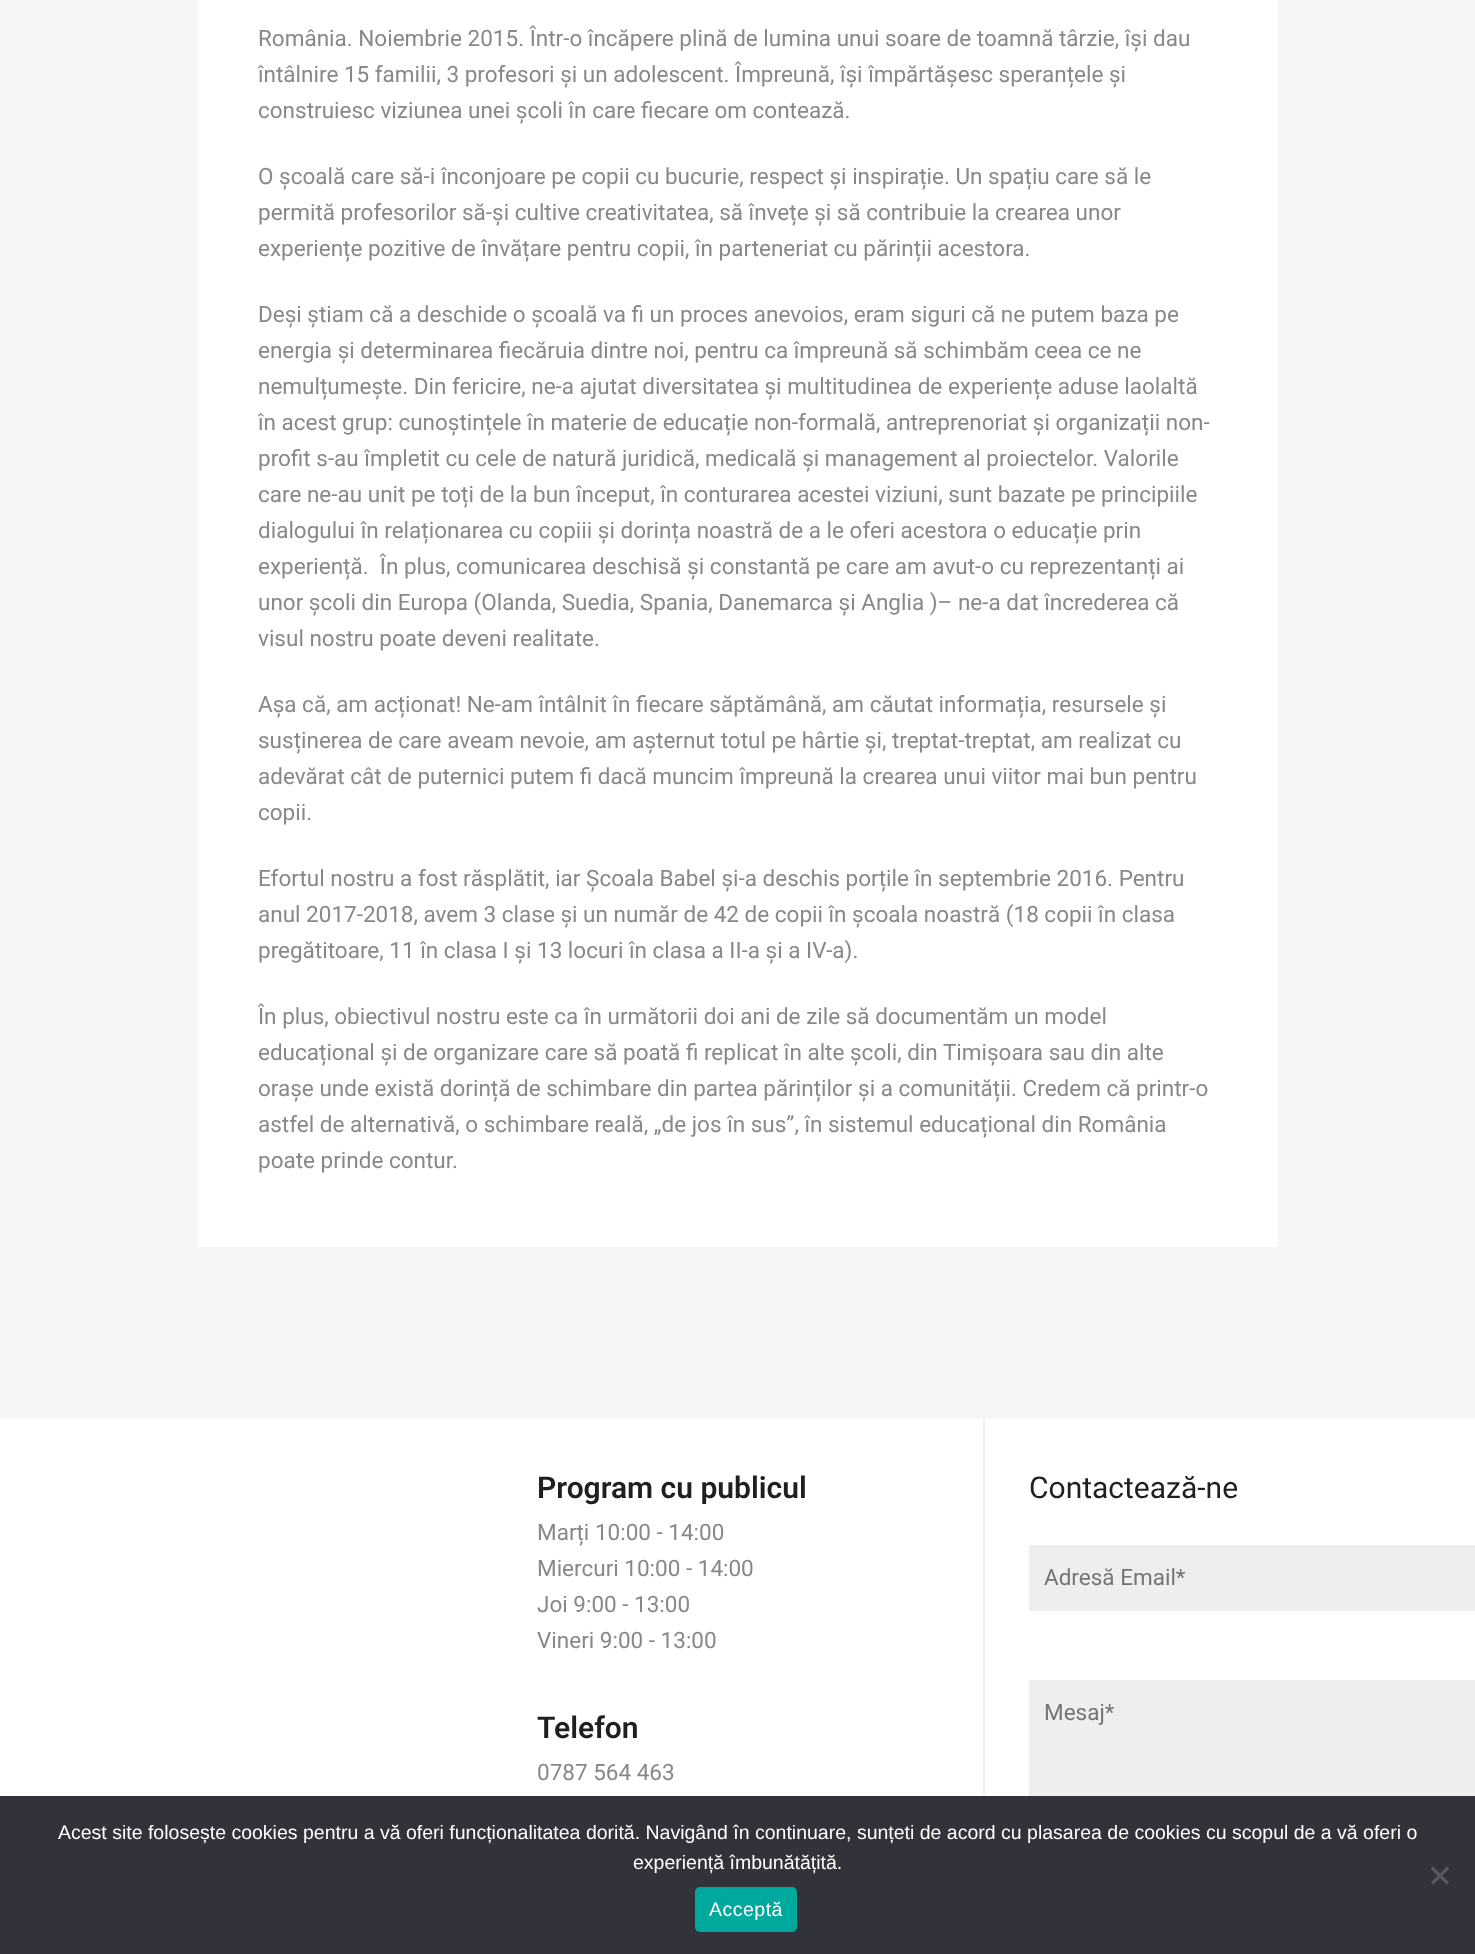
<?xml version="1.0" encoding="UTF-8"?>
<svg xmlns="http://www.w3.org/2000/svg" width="1475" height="1954">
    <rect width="100%" height="100%" fill="#FFFFFF"/>
    <rect x="0" y="0" width="1475" height="1419" fill="#F6F6F6"/>
    <rect x="198" y="0" width="1080" height="1247" fill="#FFFFFF"/>
    <text font-family="Roboto" font-size="22.5" fill="#888888">
        <tspan x="258" y="46">România. Noiembrie 2015. Într-o încăpere plină de lumina unui soare de toamnă târzie, își dau</tspan>
        <tspan x="258" y="82">întâlnire 15 familii, 3 profesori și un adolescent. Împreună, își împărtășesc speranțele și</tspan>
        <tspan x="258" y="118">construiesc viziunea unei școli în care fiecare om contează.</tspan>
    </text>
    <text font-family="Roboto" font-size="22.5" fill="#888888">
        <tspan x="258" y="184">O școală care să-i înconjoare pe copii cu bucurie, respect și inspirație. Un spațiu care să le</tspan>
        <tspan x="258" y="220">permită profesorilor să-și cultive creativitatea, să învețe și să contribuie la crearea unor</tspan>
        <tspan x="258" y="256">experiențe pozitive de învățare pentru copii, în parteneriat cu părinții acestora.</tspan>
    </text>
    <text font-family="Roboto" font-size="22.5" fill="#888888" xml:space="preserve"><tspan x="258" y="322">Deși știam că a deschide o școală va fi un proces anevoios, eram siguri că ne putem baza pe</tspan><tspan x="258" y="358">energia și determinarea fiecăruia dintre noi, pentru ca împreună să schimbăm ceea ce ne</tspan><tspan x="258" y="394">nemulțumește. Din fericire, ne-a ajutat diversitatea și multitudinea de experiențe aduse laolaltă</tspan><tspan x="258" y="430">în acest grup: cunoștințele în materie de educație non-formală, antreprenoriat și organizații non-</tspan><tspan x="258" y="466">profit s-au împletit cu cele de natură juridică, medicală și management al proiectelor. Valorile</tspan><tspan x="258" y="502">care ne-au unit pe toți de la bun început, în conturarea acestei viziuni, sunt bazate pe principiile</tspan><tspan x="258" y="538">dialogului în relaționarea cu copiii și dorința noastră de a le oferi acestora o educație prin</tspan><tspan x="258" y="574">experiență.  În plus, comunicarea deschisă și constantă pe care am avut-o cu reprezentanți ai</tspan><tspan x="258" y="610">unor școli din Europa (Olanda, Suedia, Spania, Danemarca și Anglia )– ne-a dat încrederea că</tspan><tspan x="258" y="646">visul nostru poate deveni realitate.</tspan></text>
    <text font-family="Roboto" font-size="22.5" fill="#888888">
        <tspan x="258" y="712">Așa că, am acționat! Ne-am întâlnit în fiecare săptămână, am căutat informația, resursele și</tspan>
        <tspan x="258" y="748">susținerea de care aveam nevoie, am așternut totul pe hârtie și, treptat-treptat, am realizat cu</tspan>
        <tspan x="258" y="784">adevărat cât de puternici putem fi dacă muncim împreună la crearea unui viitor mai bun pentru</tspan>
        <tspan x="258" y="820">copii.</tspan>
    </text>
    <text font-family="Roboto" font-size="22.5" fill="#888888">
        <tspan x="258" y="886">Efortul nostru a fost răsplătit, iar Școala Babel și-a deschis porțile în septembrie 2016. Pentru</tspan>
        <tspan x="258" y="922">anul 2017-2018, avem 3 clase și un număr de 42 de copii în școala noastră (18 copii în clasa</tspan>
        <tspan x="258" y="958">pregătitoare, 11 în clasa I și 13 locuri în clasa a II-a și a IV-a).</tspan>
    </text>
    <text font-family="Roboto" font-size="22.5" fill="#888888">
        <tspan x="258" y="1024">În plus, obiectivul nostru este ca în următorii doi ani de zile să documentăm un model</tspan>
        <tspan x="258" y="1060">educațional și de organizare care să poată fi replicat în alte școli, din Timișoara sau din alte</tspan>
        <tspan x="258" y="1096">orașe unde există dorință de schimbare din partea părinților și a comunității. Credem că printr-o</tspan>
        <tspan x="258" y="1132">astfel de alternativă, o schimbare reală‚ „de jos în sus”, în sistemul educațional din România</tspan>
        <tspan x="258" y="1168">poate prinde contur.</tspan>
    </text>
    <text x="537" y="1498" font-family="Roboto" font-size="30" font-weight="600" fill="#1F1F1F">Program cu publicul</text>
    <text font-family="Roboto" font-size="22.5" fill="#888888">
        <tspan x="537" y="1540">Marți 10:00 - 14:00</tspan>
        <tspan x="537" y="1576">Miercuri 10:00 - 14:00</tspan>
        <tspan x="537" y="1612">Joi 9:00 - 13:00</tspan>
        <tspan x="537" y="1648">Vineri 9:00 - 13:00</tspan>
    </text>
    <text x="537" y="1738" font-family="Roboto" font-size="30" font-weight="600" fill="#1F1F1F">Telefon</text>
    <text x="537" y="1780" font-family="Roboto" font-size="22.5" fill="#888888">0787 564 463</text>
    <rect x="983" y="1419" width="2" height="377" fill="#EEEEEE"/>
    <text x="1029" y="1498" font-family="Roboto" font-size="30" fill="#1F1F1F">Contactează-ne</text>
    <rect x="1029" y="1545" width="446" height="66" fill="#EEEEEE"/>
    <text x="1044" y="1585" font-family="Roboto" font-size="22.5" fill="#757575">Adresă Email*</text>
    <rect x="1029" y="1680" width="446" height="116" fill="#EEEEEE"/>
    <text x="1044" y="1720" font-family="Roboto" font-size="22.5" fill="#757575">Mesaj*</text>
    <rect x="0" y="1796" width="1475" height="158" fill="#32323A"/>
    <text x="58" y="1839" font-family="Liberation Sans" font-size="19.5" fill="#FFFFFF">Acest site folosește cookies pentru a vă oferi funcționalitatea dorită. Navigând în continuare, sunțeti de acord cu plasarea de cookies cu scopul de a vă oferi o</text>
    <text x="633" y="1869" font-family="Liberation Sans" font-size="19.5" fill="#FFFFFF">experiență îmbunătățită.</text>
    <path d="M 1447 1866.5 L 1449 1869 L 1433 1885 L 1431 1882.5 Z" fill="#59595D"/>
    <path d="M 1431 1869 L 1433 1866.5 L 1449 1882.5 L 1447 1885 Z" fill="#59595D"/>
    <rect x="695" y="1887" width="102" height="45" rx="5" fill="#00A99D"/>
    <text x="709" y="1916" font-family="Liberation Sans" font-size="19.5" letter-spacing="0.5" fill="#FFFFFF">Acceptă</text>
</svg>
